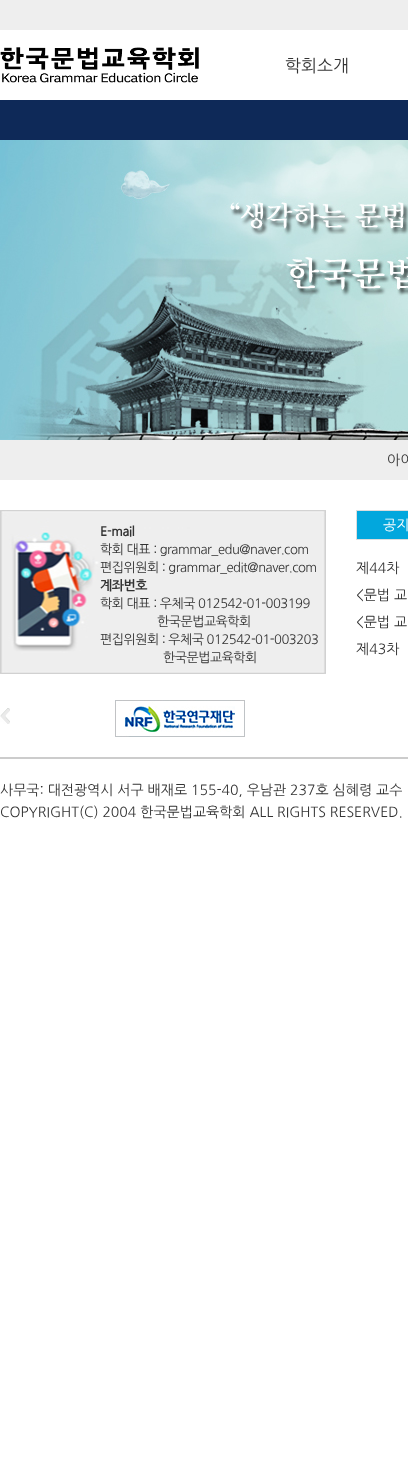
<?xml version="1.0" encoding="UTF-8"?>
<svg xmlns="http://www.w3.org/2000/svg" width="408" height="1479">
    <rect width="100%" height="100%" fill="#FFFFFF"/>
    <rect x="0" y="0" width="408" height="30" fill="#EEEEEE"/>
    <image x="0" y="47" width="199" height="36" href="img_01.png"/>
    <text x="285" y="71" font-family="'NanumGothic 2'" font-size="17" fill="#333333">학회소개</text>
    <rect x="0" y="100" width="408" height="40" fill="#0E2958"/>
    <image x="0" y="140" width="408" height="300" href="img_02.png"/>
    <rect x="0" y="440" width="408" height="40" fill="#EEEEEE"/>
    <text x="387" y="465" font-family="NanumGothic" font-size="14" fill="#333333">아이</text>
    <image x="0" y="510" width="326" height="164" href="img_03.png"/>
    <text x="100" y="536" font-family="NanumGothic" font-size="13" font-weight="700" letter-spacing="-0.5" fill="#333333">E-mail</text>
    <text font-family="NanumGothic" font-size="13" letter-spacing="-0.5" fill="#333333">
        <tspan x="100" y="554">학회 대표 : grammar_edu@naver.com</tspan>
        <tspan x="100" y="572">편집위원회 : grammar_edit@naver.com</tspan>
    </text>
    <text x="100" y="590" font-family="NanumGothic" font-size="13" font-weight="700" letter-spacing="-0.5" fill="#333333">계좌번호</text>
    <text x="100" y="608" font-family="NanumGothic" font-size="13" letter-spacing="-0.5" fill="#333333">학회 대표 : 우체국 012542-01-003199</text>
    <text x="157" y="626" font-family="NanumGothic" font-size="13" letter-spacing="-0.5" fill="#333333">한국문법교육학회</text>
    <text x="100" y="644" font-family="NanumGothic" font-size="13" letter-spacing="-0.5" fill="#333333">편집위원회 : 우체국 012542-01-003203</text>
    <text x="163" y="662" font-family="NanumGothic" font-size="13" letter-spacing="-0.5" fill="#333333">한국문법교육학회</text>
    <rect x="356.5" y="510.5" width="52" height="29" fill="none" stroke="#DDDDDD"/>
    <rect x="357" y="511" width="51" height="28" fill="#02A7DD"/>
    <text x="383" y="530" font-family="NanumGothic" font-size="14" fill="#FFFFFF">공지</text>
    <text font-family="NanumGothic" font-size="14" fill="#333333">
        <tspan x="356" y="573">제44차</tspan>
        <tspan x="356" y="600">&lt;문법 교</tspan>
        <tspan x="356" y="627">&lt;문법 교</tspan>
        <tspan x="356" y="654">제43차</tspan>
    </text>
    <image x="0" y="708" width="10" height="16" href="img_04.png"/>
    <image x="115" y="700" width="130" height="37" href="img_05.png"/>
    <rect x="0" y="757" width="408" height="2" fill="#CCCCCC"/>
    <text font-family="NanumGothic" font-size="14" fill="#333333">
        <tspan x="0" y="795">사무국: 대전광역시 서구 배재로 155-40, 우남관 237호 심혜령 교수</tspan>
        <tspan x="0" y="817">COPYRIGHT(C) 2004 한국문법교육학회 ALL RIGHTS RESERVED.</tspan>
    </text>
</svg>
